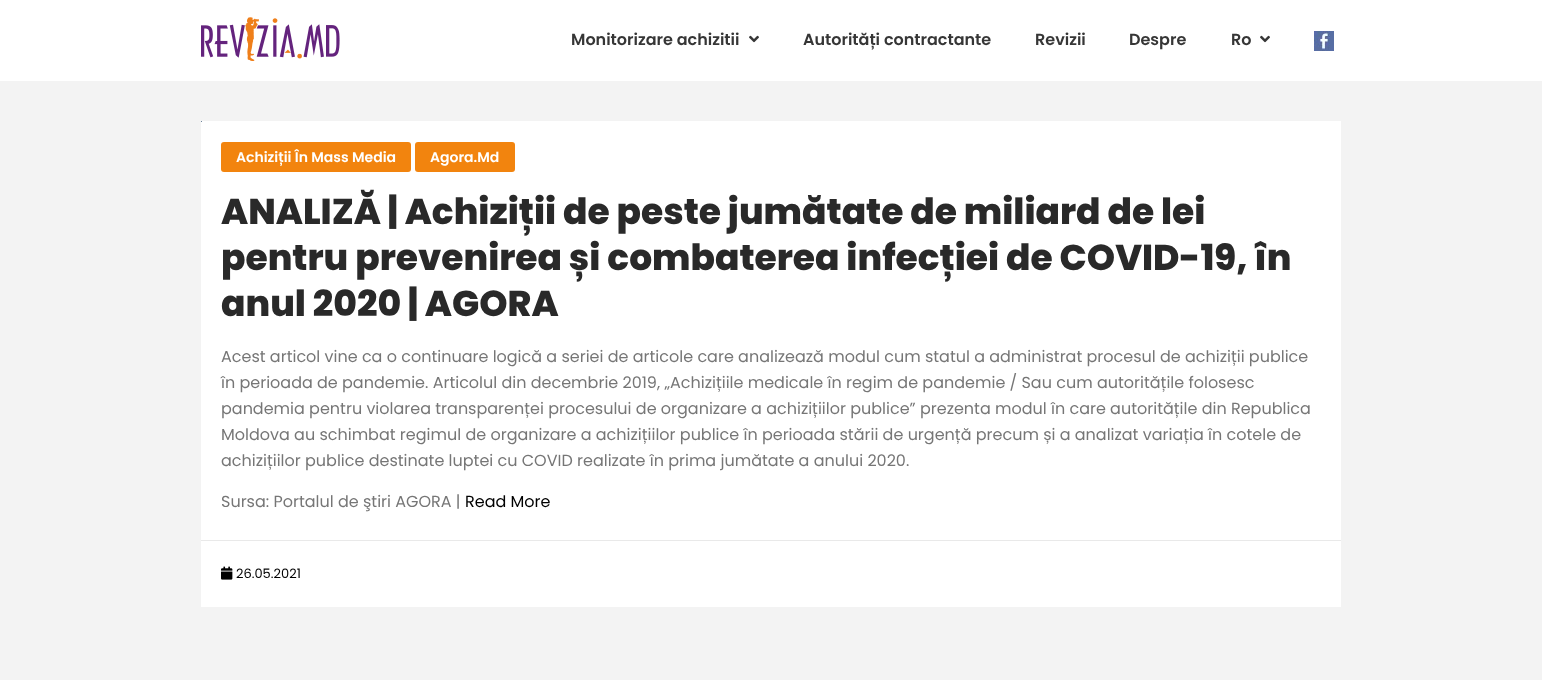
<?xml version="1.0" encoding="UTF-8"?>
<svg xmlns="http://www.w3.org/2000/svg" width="1542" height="680">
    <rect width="100%" height="100%" fill="#F3F3F3"/>
    <rect x="0" y="0" width="1542" height="81" fill="#FFFFFF"/>
    <image x="201" y="17" width="139" height="44" href="img_01.png"/>
    <text x="571" y="45" font-family="Poppins" font-size="16" font-weight="600" fill="#363636">Monitorizare achizitii</text>
    <image x="749" y="35" width="10" height="8" href="img_02.png"/>
    <text x="803" y="45" font-family="Poppins" font-size="16" font-weight="600" fill="#363636">Autorități contractante</text>
    <text x="1035" y="45" font-family="Poppins" font-size="16" font-weight="600" fill="#363636">Revizii</text>
    <text x="1129" y="45" font-family="Poppins" font-size="16" font-weight="600" fill="#363636">Despre</text>
    <text x="1231" y="45" font-family="Poppins" font-size="16" font-weight="600" fill="#363636">Ro</text>
    <image x="1260" y="35" width="10" height="8" href="img_02.png"/>
    <image x="1314" y="31" width="20" height="20" href="img_03.png"/>
    <rect x="201" y="121" width="1140" height="486" fill="#FFFFFF"/>
    <rect x="201" y="121" width="1" height="1" fill="#6E849B"/>
    <rect x="201" y="540" width="1140" height="1" fill="#E9E9E9"/>
    <rect x="221" y="142" width="190" height="30" rx="3" fill="#F2840E"/>
    <text x="236" y="162" font-family="Poppins" font-size="14" font-weight="600" fill="#FFFFFF">Achiziții În Mass Media</text>
    <rect x="415" y="142" width="100" height="30" rx="3" fill="#F2840E"/>
    <text x="430" y="162" font-family="Poppins" font-size="14" font-weight="600" fill="#FFFFFF">Agora.Md</text>
    <text font-family="Poppins" font-size="36" font-weight="800" fill="#292929">
        <tspan x="221" y="224">ANALIZĂ | Achiziții de peste jumătate de miliard de lei</tspan>
        <tspan x="221" y="270">pentru prevenirea și combaterea infecției de COVID-19, în</tspan>
        <tspan x="221" y="316">anul 2020 | AGORA</tspan>
    </text>
    <text font-family="Poppins" font-size="16" fill="#767676">
        <tspan x="221" y="362">Acest articol vine ca o continuare logică a seriei de articole care analizează modul cum statul a administrat procesul de achiziții publice</tspan>
        <tspan x="221" y="388">în perioada de pandemie. Articolul din decembrie 2019, „Achizițiile medicale în regim de pandemie / Sau cum autoritățile folosesc</tspan>
        <tspan x="221" y="414">pandemia pentru violarea transparenței procesului de organizare a achizițiilor publice” prezenta modul în care autoritățile din Republica</tspan>
        <tspan x="221" y="440">Moldova au schimbat regimul de organizare a achizițiilor publice în perioada stării de urgență precum și a analizat variația în cotele de</tspan>
        <tspan x="221" y="466">achizițiilor publice destinate luptei cu COVID realizate în prima jumătate a anului 2020.</tspan>
    </text>
    <text x="221" y="507" font-family="Poppins" font-size="16" fill="#767676">Sursa: Portalul de ştiri AGORA |</text>
    <text x="465" y="507" font-family="Poppins" font-size="16" fill="#000000">Read More</text>
    <image x="221" y="566" width="12" height="14" href="img_04.png"/>
    <text x="236" y="578" font-family="Poppins" font-size="13" fill="#000000">26.05.2021</text>
</svg>
